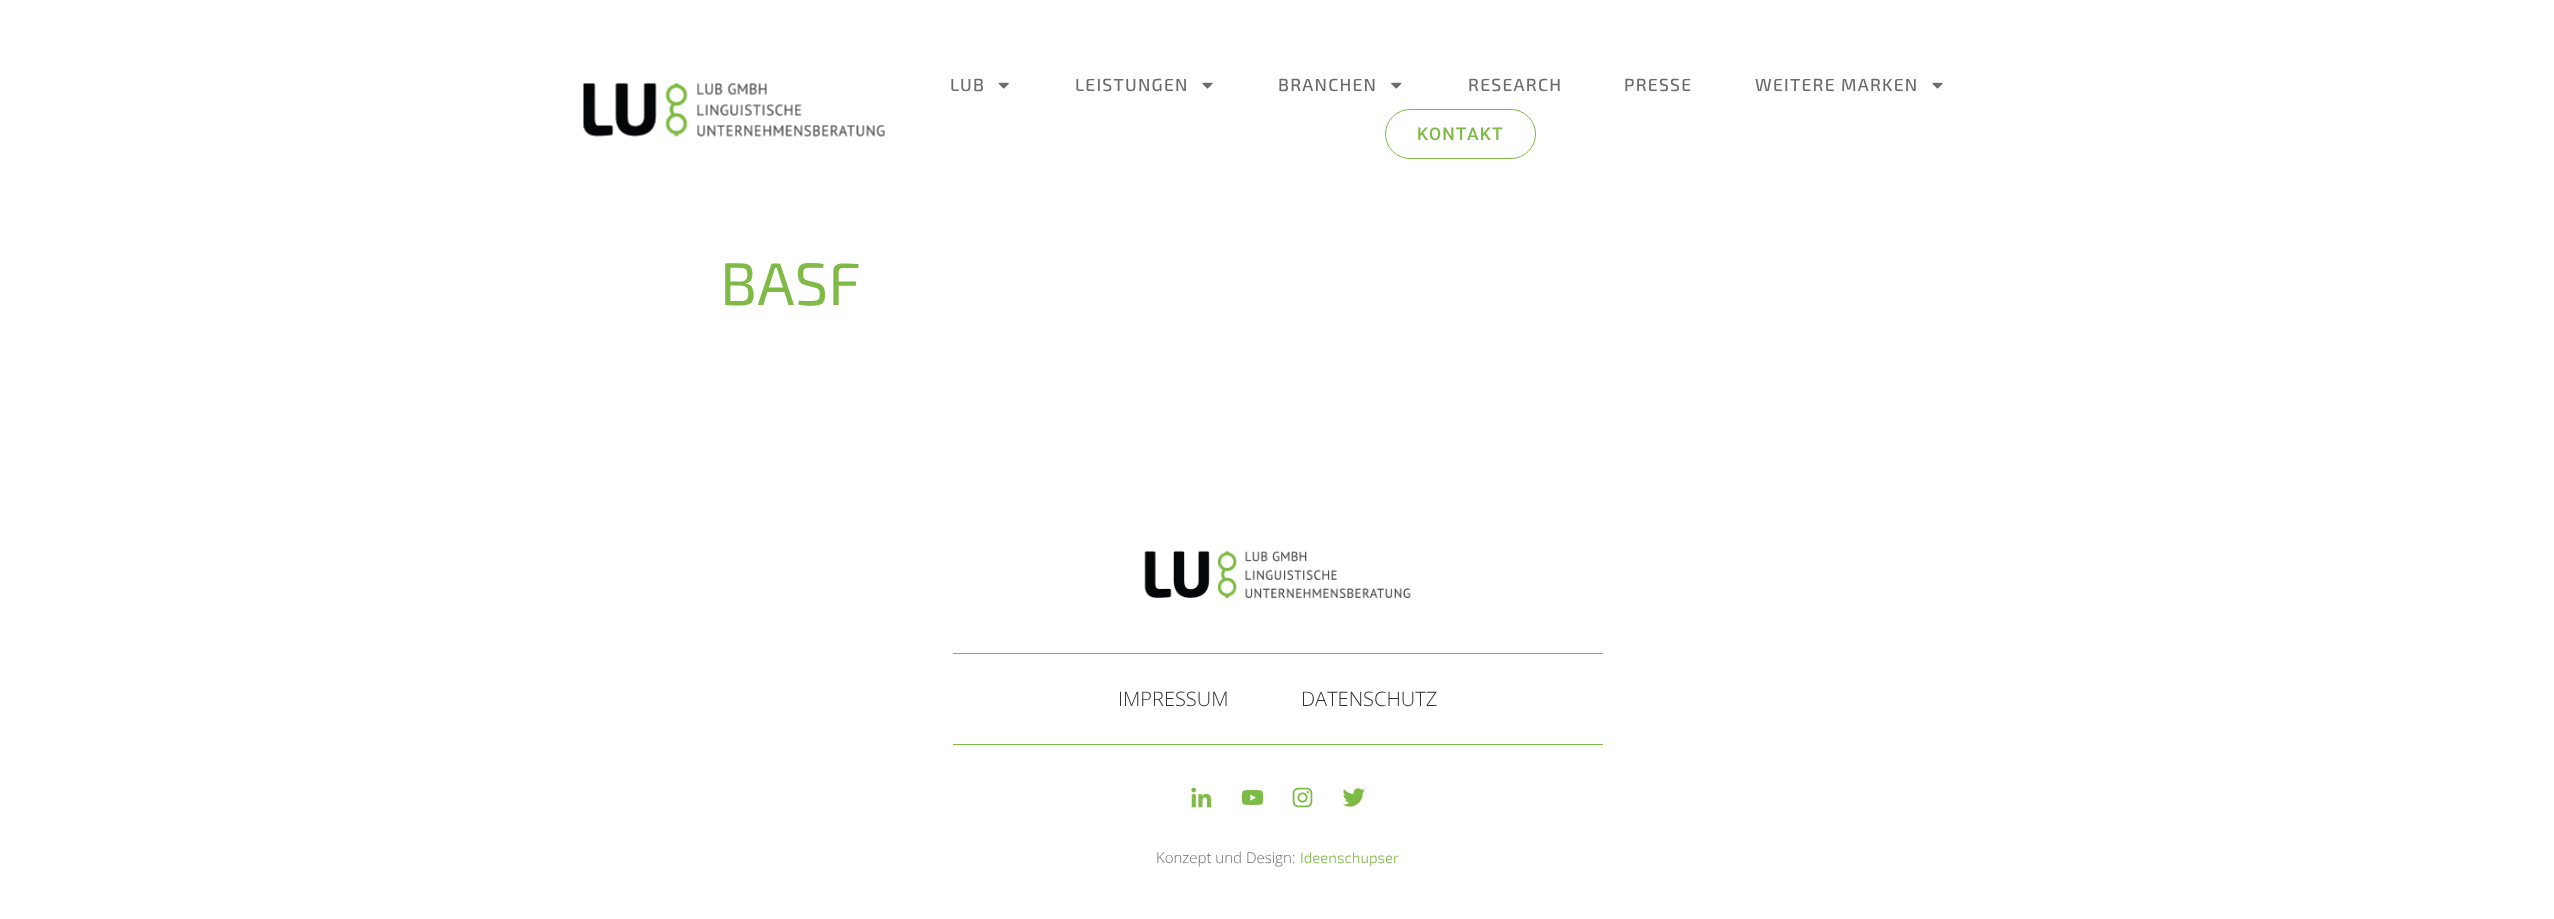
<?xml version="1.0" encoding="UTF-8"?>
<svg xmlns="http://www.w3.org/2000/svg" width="2554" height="919">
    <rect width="100%" height="100%" fill="#FFFFFF"/>
    <image x="583" y="82" width="302" height="55" href="img_01.png"/>
    <text x="950" y="91" font-family="'Exo 2'" font-size="17.5" font-weight="500" letter-spacing="1.25" fill="#6A6B6C">LUB</text>
    <image x="998" y="82" width="11" height="7" href="img_02.png"/>
    <text x="1075" y="91" font-family="'Exo 2'" font-size="17.5" font-weight="500" letter-spacing="1.25" fill="#6A6B6C">LEISTUNGEN</text>
    <image x="1202" y="82" width="11" height="7" href="img_03.png"/>
    <text x="1278" y="91" font-family="'Exo 2'" font-size="17.5" font-weight="500" letter-spacing="1.25" fill="#6A6B6C">BRANCHEN</text>
    <image x="1391" y="82" width="11" height="7" href="img_04.png"/>
    <text x="1468" y="91" font-family="'Exo 2'" font-size="17.5" font-weight="500" letter-spacing="1.25" fill="#6A6B6C">RESEARCH</text>
    <text x="1624" y="91" font-family="'Exo 2'" font-size="17.5" font-weight="500" letter-spacing="1.25" fill="#6A6B6C">PRESSE</text>
    <text x="1755" y="91" font-family="'Exo 2'" font-size="17.5" font-weight="500" letter-spacing="1.25" fill="#6A6B6C">WEITERE MARKEN</text>
    <image x="1932" y="82" width="11" height="7" href="img_03.png"/>
    <rect x="1385.5" y="109.5" width="150" height="49" rx="24.5" fill="none" stroke="#7EBA45"/>
    <text x="1417" y="140" font-family="Roboto" font-size="17.5" font-weight="500" letter-spacing="1.25" fill="#7EBA45">KONTAKT</text>
    <text x="720" y="305" font-family="'Exo 2'" font-size="60" fill="#7EBA45">BASF</text>
    <image x="1144" y="550" width="267" height="48" href="img_05.png"/>
    <rect x="953" y="653" width="650" height="1" fill="#7DBB45"/>
    <rect x="953" y="744" width="650" height="1" fill="#7DBB45"/>
    <text x="1118" y="706" font-family="Open Sans" font-size="20" font-weight="300" fill="#2F2F2F">IMPRESSUM</text>
    <text x="1301" y="706" font-family="Open Sans" font-size="20" font-weight="300" fill="#2F2F2F">DATENSCHUTZ</text>
    <image x="1191" y="787" width="21" height="21" href="img_06.png"/>
    <image x="1241" y="790" width="23" height="15" href="img_07.png"/>
    <image x="1292" y="787" width="21" height="21" href="img_08.png"/>
    <image x="1343" y="788" width="22" height="19" href="img_09.png"/>
    <text x="1156" y="863" font-family="Open Sans" font-size="15" font-weight="300" fill="#6A6B6C">Konzept und Design:</text>
    <text x="1300" y="863" font-family="'Exo 2'" font-size="15" font-weight="300" fill="#7EBA45">Ideenschupser</text>
</svg>
